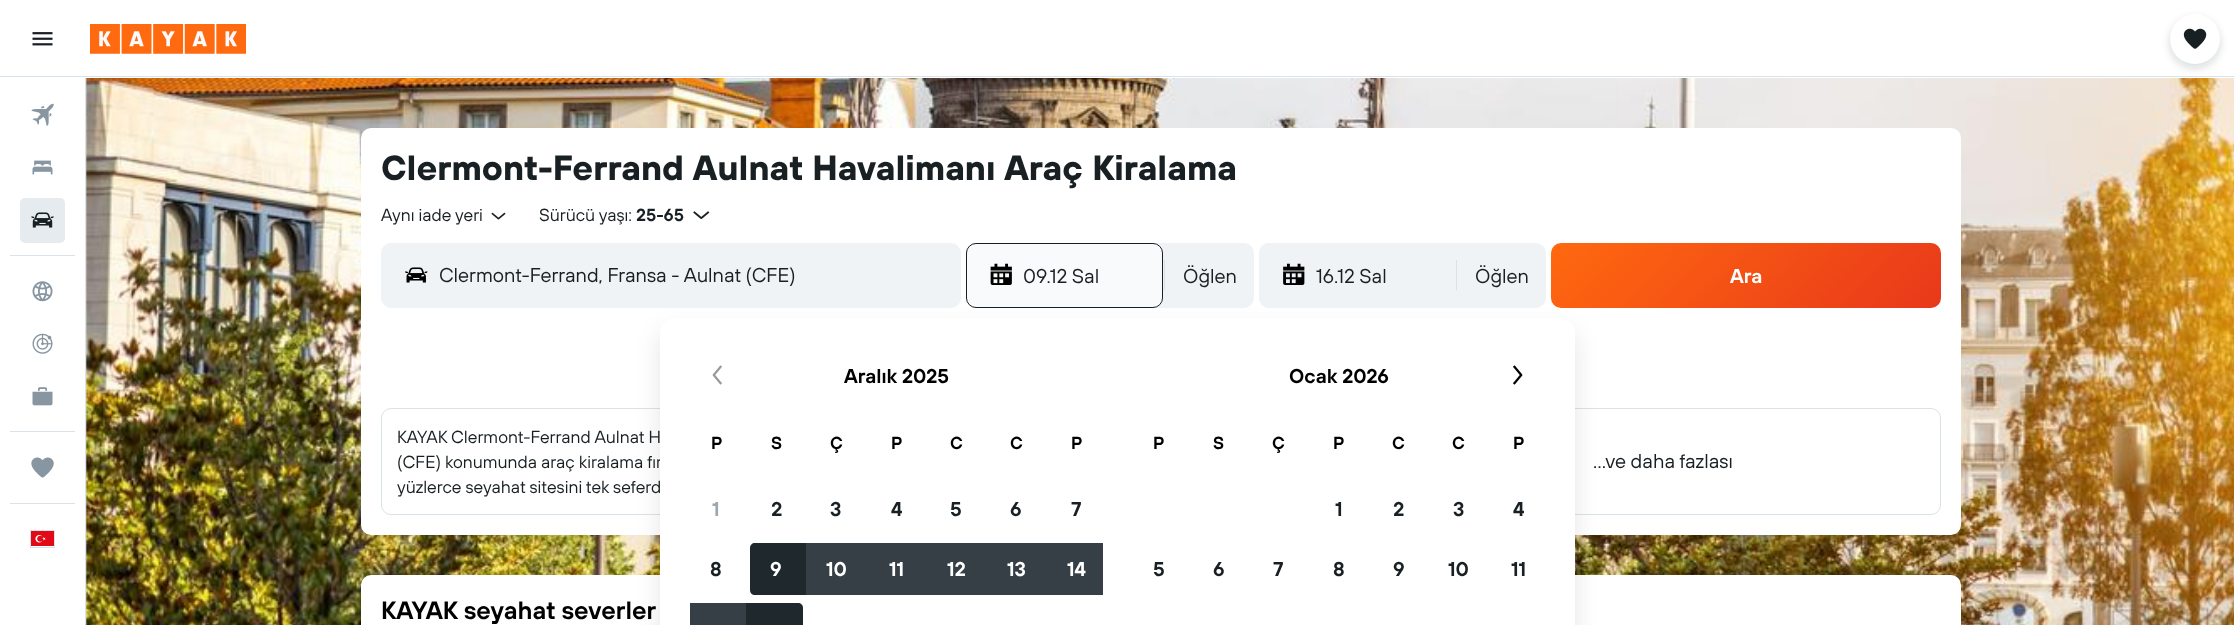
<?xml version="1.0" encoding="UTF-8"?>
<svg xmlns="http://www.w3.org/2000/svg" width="2234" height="625">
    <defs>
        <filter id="blur1" x="-50%" y="-200%" width="200%" height="500%"><feGaussianBlur stdDeviation="4"/></filter>
        <linearGradient id="g1" gradientUnits="userSpaceOnUse" x1="1633" y1="161" x2="1860" y2="389"><stop offset="0" stop-color="#FF690F"/><stop offset="1" stop-color="#E8381B"/></linearGradient>
        <filter id="blur2" x="-50%" y="-200%" width="200%" height="500%"><feGaussianBlur stdDeviation="12.5"/></filter>
    </defs>
    <rect width="100%" height="100%" fill="#FFFFFF"/>
    <rect x="0" y="76" width="2234" height="1" fill="#D9E2E8"/>
    <image x="32" y="32" width="21" height="14" href="img_01.png"/>
    <image x="90" y="24" width="156" height="30" href="img_02.png"/>
    <image x="86" y="78" width="2148" height="547" href="img_12.png"/>
    <rect x="2170" y="18" width="50" height="50" rx="25" fill="#192024" fill-opacity="0.16" filter="url(#blur1)"/>
    <circle cx="2195" cy="39" r="25" fill="#FFFFFF"/>
    <image x="2183" y="28" width="24" height="21" href="img_03.png"/>
    <rect x="85" y="78" width="1" height="547" fill="#D9E2E8"/>
    <image x="31" y="103" width="23" height="24" href="img_04.png"/>
    <image x="32" y="160" width="21" height="15" href="img_05.png"/>
    <rect x="20" y="198" width="45" height="45" rx="5" fill="#E6EBEF"/>
    <image x="31" y="212" width="23" height="16" href="img_06.png"/>
    <rect x="10" y="255" width="65" height="1" fill="#D9E2E8"/>
    <image x="32" y="281" width="21" height="21" href="img_07.png"/>
    <image x="32" y="333" width="21" height="21" href="img_08.png"/>
    <image x="32" y="387" width="21" height="19" href="img_09.png"/>
    <rect x="10" y="431" width="65" height="1" fill="#D9E2E8"/>
    <image x="31" y="457" width="23" height="21" href="img_10.png"/>
    <rect x="10" y="503" width="65" height="1" fill="#D9E2E8"/>
    <rect x="30.5" y="530.5" width="24" height="17" fill="none" stroke="#D9E2E8"/>
    <image x="31" y="531" width="23" height="15" href="img_11.png"/>
    <rect x="361" y="128" width="1600" height="407" rx="10" fill="#FFFFFF"/>
    <text x="381" y="180" font-family="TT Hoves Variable" font-size="35" font-weight="700" fill="#192024">Clermont-Ferrand Aulnat Havalimanı Araç Kiralama</text>
    <text x="381" y="221" font-family="TT Hoves Variable" font-size="17.5" fill="#192024">Aynı iade yeri</text>
    <image x="491" y="212" width="15" height="8" href="img_13.png"/>
    <text x="539" y="221" font-family="TT Hoves Variable" font-size="17.5" fill="#192024">Sürücü yaşı:</text>
    <text x="636" y="221" font-family="TT Hoves Variable" font-size="17.5" font-weight="600" fill="#192024">25-65</text>
    <image x="693" y="211" width="17" height="8" href="img_14.png"/>
    <rect x="381.5" y="243.5" width="579" height="64" rx="9.5" fill="#F0F3F5" stroke="#F0F3F5"/>
    <image x="405" y="267" width="23" height="16" href="img_15.png"/>
    <text x="439" y="282" font-family="TT Hoves Variable" font-size="20" fill="#192024">Clermont-Ferrand, Fransa - Aulnat (CFE)</text>
    <rect x="966" y="243" width="288" height="65" rx="10" fill="#F0F3F5"/>
    <rect x="966.5" y="243.5" width="196" height="64" rx="9.5" fill="#F9FAFB" stroke="#192024"/>
    <image x="990" y="263" width="22" height="22" href="img_16.png"/>
    <text x="1023" y="283" font-family="TT Hoves Variable" font-size="20" fill="#192024">09.12 Sal</text>
    <rect x="1164" y="260" width="1" height="30" fill="#D9E2E8"/>
    <text x="1183" y="283" font-family="TT Hoves Variable" font-size="20" fill="#192024">Öğlen</text>
    <rect x="1259" y="243" width="287" height="65" rx="10" fill="#F0F3F5"/>
    <rect x="1259" y="243" width="196" height="65" rx="10" fill="#F0F3F5"/>
    <image x="1283" y="263" width="22" height="22" href="img_17.png"/>
    <text x="1316" y="283" font-family="TT Hoves Variable" font-size="20" fill="#192024">16.12 Sal</text>
    <rect x="1456" y="260" width="1" height="30" fill="#D9E2E8"/>
    <text x="1475" y="283" font-family="TT Hoves Variable" font-size="20" fill="#192024">Öğlen</text>
    <rect x="1551" y="243" width="390" height="65" rx="10" fill="url(#g1)"/>
    <text x="1730" y="283" font-family="TT Hoves Variable" font-size="20" font-weight="600" fill="#FFFFFF">Ara</text>
    <rect x="381.5" y="408.5" width="1559" height="106" rx="9.5" fill="none" stroke="#D9E2E8"/>
    <text font-family="TT Hoves Variable" font-size="17.5" fill="#192024">
        <tspan x="397" y="443">KAYAK Clermont-Ferrand Aulnat H</tspan>
        <tspan x="397" y="468">(CFE) konumunda araç kiralama fır</tspan>
        <tspan x="397" y="493">yüzlerce seyahat sitesini tek seferd</tspan>
    </text>
    <text x="1593" y="468" font-family="TT Hoves Variable" font-size="20" fill="#192024">...ve daha fazlası</text>
    <rect x="361" y="575" width="1600" height="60" rx="10" fill="#FFFFFF"/>
    <text x="381" y="619" font-family="TT Hoves Variable" font-size="25" font-weight="600" fill="#000000">KAYAK seyahat severler</text>
    <rect x="660" y="330" width="915" height="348" rx="15" fill="#192024" fill-opacity="0.1" filter="url(#blur2)"/>
    <rect x="660" y="318" width="915" height="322" rx="15" fill="#FFFFFF"/>
    <image x="712" y="365" width="10" height="20" href="img_18.png"/>
    <image x="1513" y="365" width="10" height="20" href="img_19.png"/>
    <text x="844" y="383" font-family="TT Hoves Variable" font-size="20" font-weight="600" fill="#000000">Aralık 2025</text>
    <text x="711" y="449" font-family="TT Hoves Variable" font-size="17.5" font-weight="600" fill="#000000">P</text>
    <text x="771" y="449" font-family="TT Hoves Variable" font-size="17.5" font-weight="600" fill="#000000">S</text>
    <text x="830" y="449" font-family="TT Hoves Variable" font-size="17.5" font-weight="600" fill="#000000">Ç</text>
    <text x="891" y="449" font-family="TT Hoves Variable" font-size="17.5" font-weight="600" fill="#000000">P</text>
    <text x="950" y="449" font-family="TT Hoves Variable" font-size="17.5" font-weight="600" fill="#000000">C</text>
    <text x="1010" y="449" font-family="TT Hoves Variable" font-size="17.5" font-weight="600" fill="#000000">C</text>
    <text x="1071" y="449" font-family="TT Hoves Variable" font-size="17.5" font-weight="600" fill="#000000">P</text>
    <text x="712" y="516" font-family="TT Hoves Variable" font-size="20" font-weight="600" fill="#9BA8B0">1</text>
    <text x="771" y="516" font-family="TT Hoves Variable" font-size="20" font-weight="600" fill="#192024">2</text>
    <text x="830" y="516" font-family="TT Hoves Variable" font-size="20" font-weight="600" fill="#192024">3</text>
    <text x="891" y="516" font-family="TT Hoves Variable" font-size="20" font-weight="600" fill="#192024">4</text>
    <text x="950" y="516" font-family="TT Hoves Variable" font-size="20" font-weight="600" fill="#192024">5</text>
    <text x="1010" y="516" font-family="TT Hoves Variable" font-size="20" font-weight="600" fill="#192024">6</text>
    <text x="1071" y="516" font-family="TT Hoves Variable" font-size="20" font-weight="600" fill="#192024">7</text>
    <text x="710" y="576" font-family="TT Hoves Variable" font-size="20" font-weight="600" fill="#192024">8</text>
    <path d="M 755 543 H 806 V 595 H 755 C 752 595 750 593 750 590 V 548 C 750 545 752 543 755 543 Z" fill="#1F282D"/>
    <text x="770" y="576" font-family="TT Hoves Variable" font-size="20" font-weight="600" fill="#FFFFFF">9</text>
    <rect x="806" y="543" width="297" height="52" fill="#363F45"/>
    <text x="826" y="576" font-family="TT Hoves Variable" font-size="20" font-weight="600" fill="#FFFFFF">10</text>
    <text x="889" y="576" font-family="TT Hoves Variable" font-size="20" font-weight="600" fill="#FFFFFF">11</text>
    <text x="947" y="576" font-family="TT Hoves Variable" font-size="20" font-weight="600" fill="#FFFFFF">12</text>
    <text x="1007" y="576" font-family="TT Hoves Variable" font-size="20" font-weight="600" fill="#FFFFFF">13</text>
    <text x="1067" y="576" font-family="TT Hoves Variable" font-size="20" font-weight="600" fill="#FFFFFF">14</text>
    <rect x="690" y="603" width="56" height="22" fill="#363F45"/>
    <path d="M 746 603 H 798 C 801 603 803 605 803 608 V 625 C 803 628 801 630 798 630 H 746 Z" fill="#1F282D"/>
    <text x="1289" y="383" font-family="TT Hoves Variable" font-size="20" font-weight="600" fill="#000000">Ocak 2026</text>
    <text x="1153" y="449" font-family="TT Hoves Variable" font-size="17.5" font-weight="600" fill="#000000">P</text>
    <text x="1213" y="449" font-family="TT Hoves Variable" font-size="17.5" font-weight="600" fill="#000000">S</text>
    <text x="1272" y="449" font-family="TT Hoves Variable" font-size="17.5" font-weight="600" fill="#000000">Ç</text>
    <text x="1333" y="449" font-family="TT Hoves Variable" font-size="17.5" font-weight="600" fill="#000000">P</text>
    <text x="1392" y="449" font-family="TT Hoves Variable" font-size="17.5" font-weight="600" fill="#000000">C</text>
    <text x="1452" y="449" font-family="TT Hoves Variable" font-size="17.5" font-weight="600" fill="#000000">C</text>
    <text x="1513" y="449" font-family="TT Hoves Variable" font-size="17.5" font-weight="600" fill="#000000">P</text>
    <text x="1335" y="516" font-family="TT Hoves Variable" font-size="20" font-weight="600" fill="#192024">1</text>
    <text x="1393" y="516" font-family="TT Hoves Variable" font-size="20" font-weight="600" fill="#192024">2</text>
    <text x="1453" y="516" font-family="TT Hoves Variable" font-size="20" font-weight="600" fill="#192024">3</text>
    <text x="1513" y="516" font-family="TT Hoves Variable" font-size="20" font-weight="600" fill="#192024">4</text>
    <text x="1153" y="576" font-family="TT Hoves Variable" font-size="20" font-weight="600" fill="#192024">5</text>
    <text x="1213" y="576" font-family="TT Hoves Variable" font-size="20" font-weight="600" fill="#192024">6</text>
    <text x="1273" y="576" font-family="TT Hoves Variable" font-size="20" font-weight="600" fill="#192024">7</text>
    <text x="1333" y="576" font-family="TT Hoves Variable" font-size="20" font-weight="600" fill="#192024">8</text>
    <text x="1393" y="576" font-family="TT Hoves Variable" font-size="20" font-weight="600" fill="#192024">9</text>
    <text x="1448" y="576" font-family="TT Hoves Variable" font-size="20" font-weight="600" fill="#192024">10</text>
    <text x="1511" y="576" font-family="TT Hoves Variable" font-size="20" font-weight="600" fill="#192024">11</text>
</svg>
